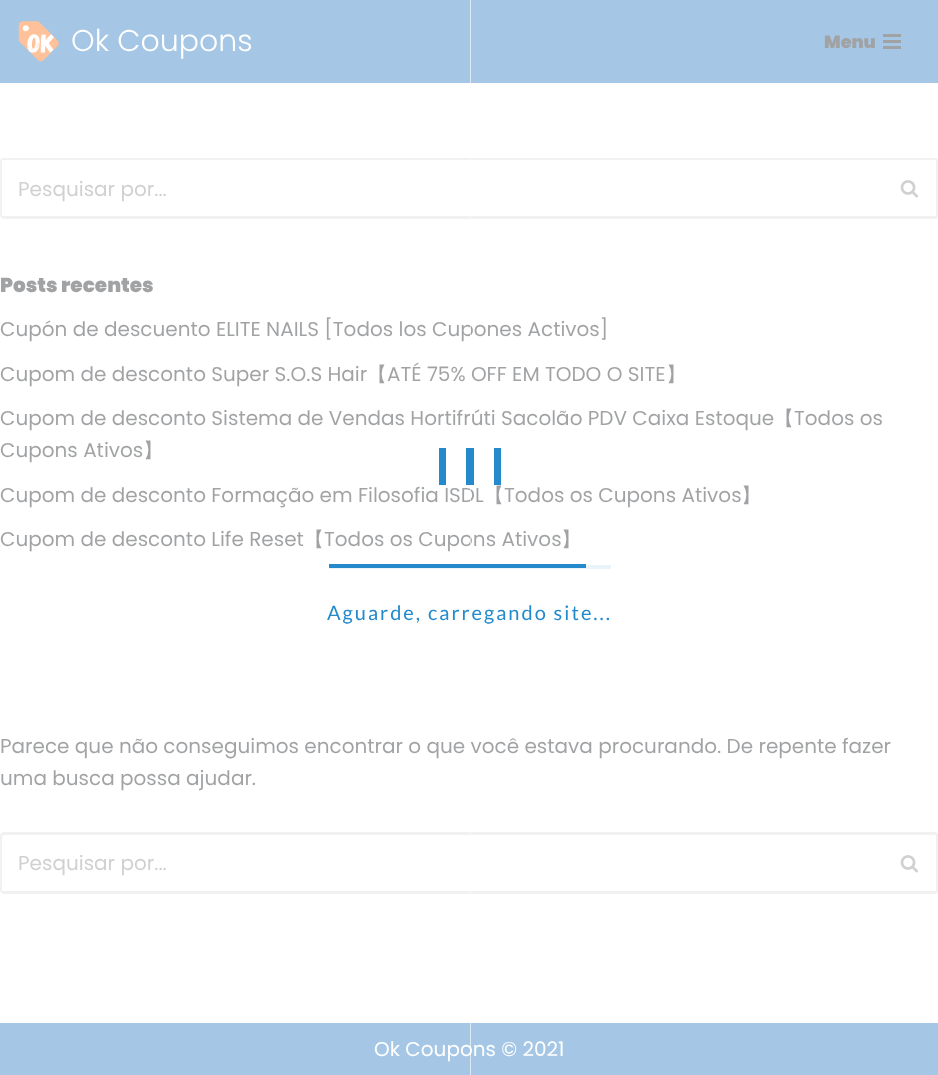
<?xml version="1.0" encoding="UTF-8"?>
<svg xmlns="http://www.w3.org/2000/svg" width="938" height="1075">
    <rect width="100%" height="100%" fill="#FFFFFF"/>
    <rect x="0" y="0" width="938" height="83" fill="#1E73BE"/>
    <image x="18" y="21" width="41" height="41" href="img_01.png"/>
    <text x="71" y="51" font-family="Poppins" font-size="30" font-weight="300" fill="#FFFFFF">Ok Coupons</text>
    <text x="824" y="48" font-family="Poppins" font-size="17.5" font-weight="900" fill="#14171C">Menu</text>
    <rect x="883" y="34" width="18" height="3" fill="#14171C"/>
    <rect x="883" y="40" width="18" height="3" fill="#14171C"/>
    <rect x="883" y="46" width="18" height="3" fill="#14171C"/>
    <path d="M 4 158 H 882 V 219 H 4 C 2 219 0 217 0 215 V 161 C 0 159 2 158 4 158 Z M 4 160 H 882 V 216 H 4 C 3 216 2 216 2 215 V 161 C 2 161 3 160 4 160 Z" fill="#DDDDDD" fill-rule="evenodd"/>
    <text x="18" y="196" font-family="Poppins" font-size="20" fill="#8A8B8E">Pesquisar por...</text>
    <path d="M 882 158 H 935 C 937 158 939 159 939 161 V 215 C 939 217 937 219 935 219 H 882 Z M 882 160 H 935 C 936 160 936 161 936 161 V 215 C 936 216 936 216 935 216 H 882 Z" fill="#DDDDDD" fill-rule="evenodd"/>
    <image x="900" y="180" width="18" height="18" href="img_02.png"/>
    <text x="0" y="292" font-family="Poppins" font-size="20" font-weight="900" fill="#14171C">Posts recentes</text>
    <text x="0" y="336" font-family="Poppins" font-size="20" fill="#14171C">Cupón de descuento ELITE NAILS [Todos los Cupones Activos]</text>
    <text x="0" y="381" font-family="Poppins" font-size="20" fill="#14171C">Cupom de desconto Super S.O.S Hair</text>
    <text x="367" y="381" font-family="WenQuanYi Zen Hei" font-size="20" font-weight="500" fill="#14171C">【</text>
    <text x="387" y="381" font-family="Poppins" font-size="20" fill="#14171C">ATÉ 75% OFF EM TODO O SITE</text>
    <text x="666" y="381" font-family="WenQuanYi Zen Hei" font-size="20" font-weight="500" fill="#14171C">】</text>
    <text x="0" y="425" font-family="Poppins" font-size="20" fill="#14171C">Cupom de desconto Sistema de Vendas Hortifrúti Sacolão PDV Caixa Estoque</text>
    <text x="774" y="425" font-family="WenQuanYi Zen Hei" font-size="20" font-weight="500" fill="#14171C">【</text>
    <text x="794" y="425" font-family="Poppins" font-size="20" fill="#14171C">Todos os</text>
    <text x="0" y="457" font-family="Poppins" font-size="20" fill="#14171C">Cupons Ativos</text>
    <text x="143" y="457" font-family="WenQuanYi Zen Hei" font-size="20" font-weight="500" fill="#14171C">】</text>
    <text x="0" y="502" font-family="Poppins" font-size="20" fill="#14171C">Cupom de desconto Formação em Filosofia ISDL</text>
    <text x="484" y="502" font-family="WenQuanYi Zen Hei" font-size="20" font-weight="500" fill="#14171C">【</text>
    <text x="504" y="502" font-family="Poppins" font-size="20" fill="#14171C">Todos os Cupons Ativos</text>
    <text x="741" y="502" font-family="WenQuanYi Zen Hei" font-size="20" font-weight="500" fill="#14171C">】</text>
    <text x="0" y="546" font-family="Poppins" font-size="20" fill="#14171C">Cupom de desconto Life Reset</text>
    <text x="304" y="546" font-family="WenQuanYi Zen Hei" font-size="20" font-weight="500" fill="#14171C">【</text>
    <text x="324" y="546" font-family="Poppins" font-size="20" fill="#14171C">Todos os Cupons Ativos</text>
    <text x="561" y="546" font-family="WenQuanYi Zen Hei" font-size="20" font-weight="500" fill="#14171C">】</text>
    <text font-family="Poppins" font-size="20" fill="#14171C">
        <tspan x="0" y="753">Parece que não conseguimos encontrar o que você estava procurando. De repente fazer</tspan>
        <tspan x="0" y="785">uma busca possa ajudar.</tspan>
    </text>
    <path d="M 4 832 H 882 V 894 H 4 C 2 894 0 892 0 890 V 836 C 0 834 2 832 4 832 Z M 4 835 H 882 V 891 H 4 C 3 891 2 891 2 890 V 836 C 2 836 3 835 4 835 Z" fill="#DDDDDD" fill-rule="evenodd"/>
    <text x="18" y="870" font-family="Poppins" font-size="20" fill="#8A8B8E">Pesquisar por...</text>
    <path d="M 882 832 H 935 C 937 832 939 834 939 836 V 890 C 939 892 937 894 935 894 H 882 Z M 882 835 H 935 C 936 835 936 836 936 836 V 890 C 936 891 936 891 935 891 H 882 Z" fill="#DDDDDD" fill-rule="evenodd"/>
    <image x="900" y="855" width="18" height="18" href="img_02.png"/>
    <rect x="0" y="1023" width="938" height="52" fill="#1E73BE"/>
    <text x="374" y="1056" font-family="Poppins" font-size="20" fill="#FFFFFF">Ok Coupons © 2021</text>
    <rect x="0" y="0" width="471" height="1075" fill="#FFFFFF" fill-opacity="0.6"/>
    <rect x="470" y="0" width="468" height="1075" fill="#FFFFFF" fill-opacity="0.6"/>
    <rect x="439" y="448" width="7" height="37" fill="#248ACC"/>
    <rect x="466" y="448" width="8" height="37" fill="#248ACC"/>
    <rect x="494" y="448" width="7" height="37" fill="#248ACC"/>
    <rect x="329" y="565" width="282" height="4" fill="#E9F3FA"/>
    <rect x="329" y="564" width="257" height="4" fill="#248ACC"/>
    <text x="327" y="620" font-family="Lato" font-size="20" letter-spacing="2" fill="#248ACC">Aguarde, carregando site...</text>
</svg>
